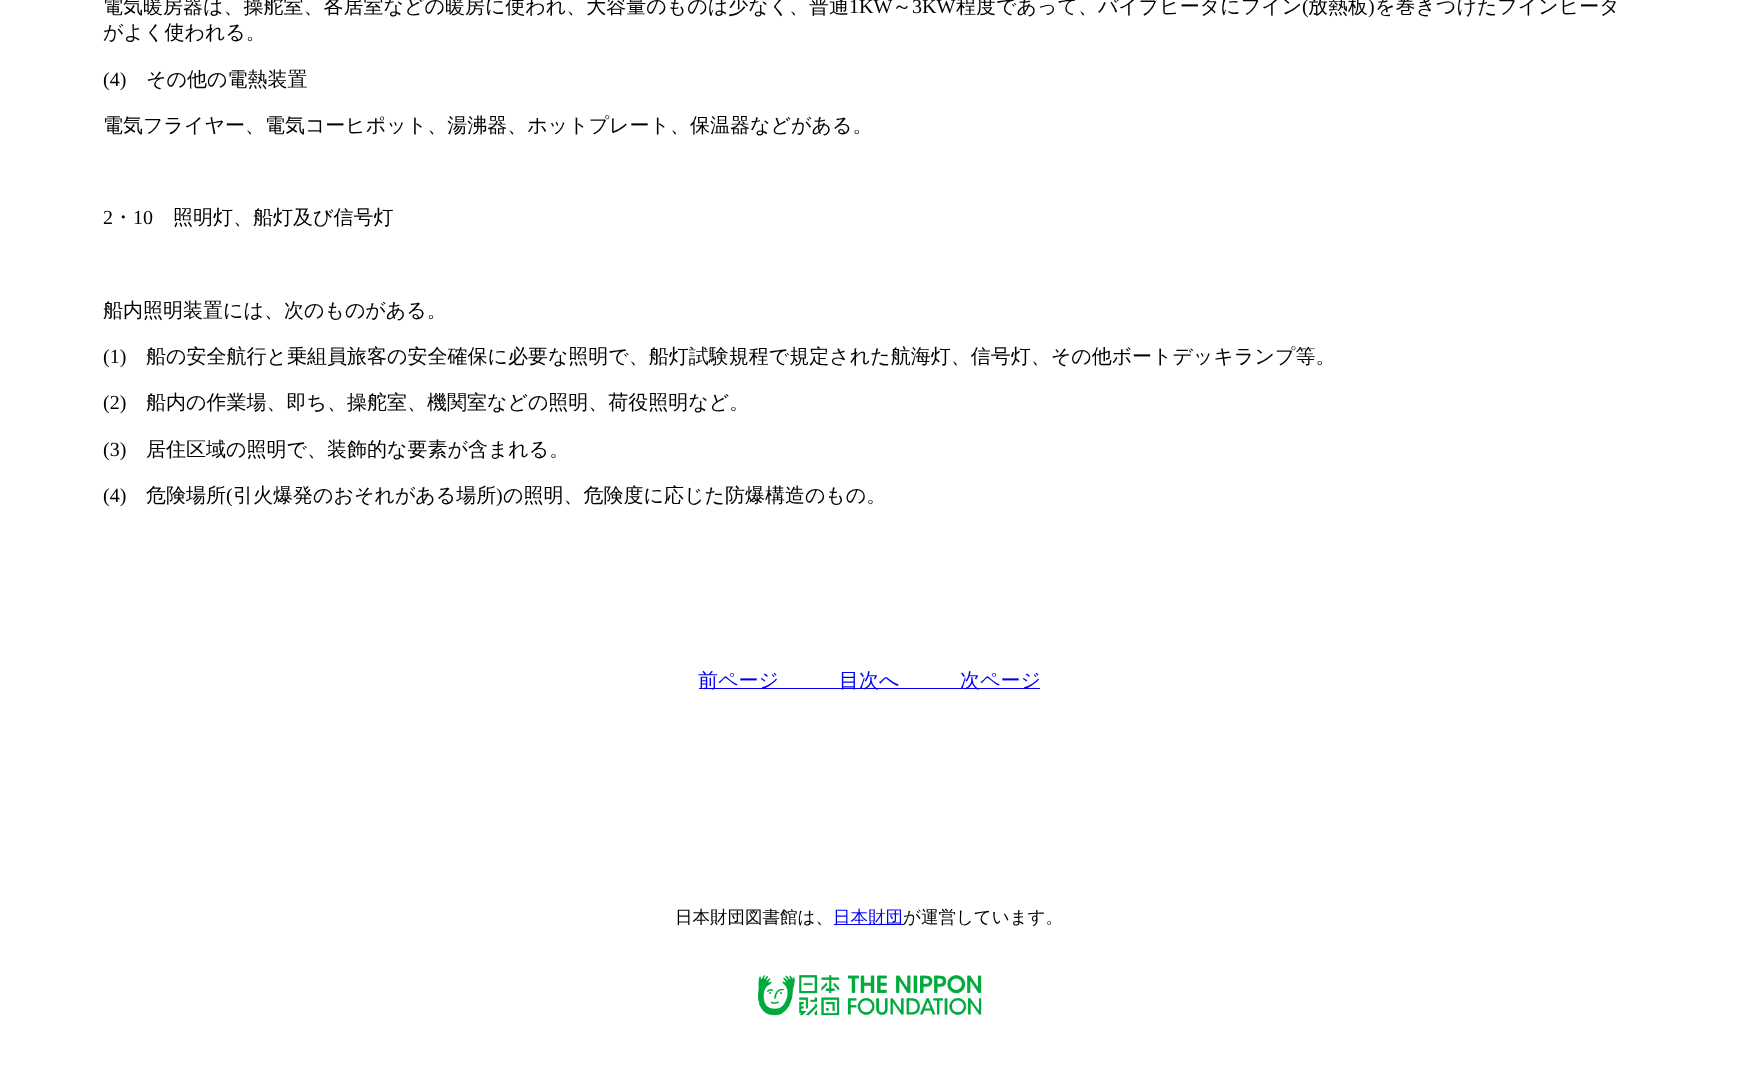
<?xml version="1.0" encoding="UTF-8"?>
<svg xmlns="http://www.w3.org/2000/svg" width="1738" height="1068">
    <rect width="100%" height="100%" fill="#FFFFFF"/>
    <text x="103" y="13" font-family="WenQuanYi Zen Hei" font-size="20" font-weight="500" fill="#000000">電気暖房器は、操舵室、各居室などの暖房に使われ、大容量のものは少なく、普通</text>
    <text x="849" y="13" font-family="Liberation Serif" font-size="20" fill="#000000">1KW</text>
    <text x="892" y="13" font-family="WenQuanYi Zen Hei" font-size="20" font-weight="500" fill="#000000">～</text>
    <text x="912" y="13" font-family="Liberation Serif" font-size="20" fill="#000000">3KW</text>
    <text x="956" y="13" font-family="WenQuanYi Zen Hei" font-size="20" font-weight="500" fill="#000000">程度であって、バイブヒータにフイン</text>
    <text x="1302" y="13" font-family="Liberation Serif" font-size="20" fill="#000000">(</text>
    <text x="1308" y="13" font-family="WenQuanYi Zen Hei" font-size="20" font-weight="500" fill="#000000">放熱板</text>
    <text x="1368" y="13" font-family="Liberation Serif" font-size="20" fill="#000000">)</text>
    <text x="1375" y="13" font-family="WenQuanYi Zen Hei" font-size="20" font-weight="500" fill="#000000">を巻きつけたフインヒータ</text>
    <text x="103" y="39" font-family="WenQuanYi Zen Hei" font-size="20" font-weight="500" fill="#000000">がよく使われる。</text>
    <text x="103" y="86" font-family="Liberation Serif" font-size="20" fill="#000000">(4)</text>
    <text x="146" y="86" font-family="WenQuanYi Zen Hei" font-size="20" font-weight="500" fill="#000000">その他の電熱装置</text>
    <text x="103" y="132" font-family="WenQuanYi Zen Hei" font-size="20" font-weight="500" fill="#000000">電気フライヤー、電気コーヒポット、湯沸器、ホットプレート、保温器などがある。</text>
    <text x="103" y="224" font-family="Liberation Serif" font-size="20" fill="#000000">2</text>
    <text x="113" y="224" font-family="WenQuanYi Zen Hei" font-size="20" font-weight="500" fill="#000000">・</text>
    <text x="133" y="224" font-family="Liberation Serif" font-size="20" fill="#000000">10</text>
    <text x="173" y="224" font-family="WenQuanYi Zen Hei" font-size="20" font-weight="500" fill="#000000">照明灯、船灯及び信号灯</text>
    <text x="103" y="317" font-family="WenQuanYi Zen Hei" font-size="20" font-weight="500" fill="#000000">船内照明装置には、次のものがある。</text>
    <text x="103" y="363" font-family="Liberation Serif" font-size="20" fill="#000000">(1)</text>
    <text x="146" y="363" font-family="WenQuanYi Zen Hei" font-size="20" font-weight="500" fill="#000000">船の安全航行と乗組員旅客の安全確保に必要な照明で、船灯試験規程で規定された航海灯、信号灯、その他ボートデッキランプ等。</text>
    <text x="103" y="409" font-family="Liberation Serif" font-size="20" fill="#000000">(2)</text>
    <text x="146" y="409" font-family="WenQuanYi Zen Hei" font-size="20" font-weight="500" fill="#000000">船内の作業場、即ち、操舵室、機関室などの照明、荷役照明など。</text>
    <text x="103" y="456" font-family="Liberation Serif" font-size="20" fill="#000000">(3)</text>
    <text x="146" y="456" font-family="WenQuanYi Zen Hei" font-size="20" font-weight="500" fill="#000000">居住区域の照明で、装飾的な要素が含まれる。</text>
    <text x="103" y="502" font-family="Liberation Serif" font-size="20" fill="#000000">(4)</text>
    <text x="146" y="502" font-family="WenQuanYi Zen Hei" font-size="20" font-weight="500" fill="#000000">危険場所</text>
    <text x="226" y="502" font-family="Liberation Serif" font-size="20" fill="#000000">(</text>
    <text x="233" y="502" font-family="WenQuanYi Zen Hei" font-size="20" font-weight="500" fill="#000000">引火爆発のおそれがある場所</text>
    <text x="496" y="502" font-family="Liberation Serif" font-size="20" fill="#000000">)</text>
    <text x="503" y="502" font-family="WenQuanYi Zen Hei" font-size="20" font-weight="500" fill="#000000">の照明、危険度に応じた防爆構造のもの。</text>
    <rect x="699" y="688" width="341" height="1" fill="#0000EE"/>
    <text x="698" y="687" font-family="WenQuanYi Zen Hei" font-size="20" font-weight="500" fill="#0000EE">前ページ</text>
    <text x="839" y="687" font-family="WenQuanYi Zen Hei" font-size="20" font-weight="500" fill="#0000EE">目次へ</text>
    <text x="960" y="687" font-family="WenQuanYi Zen Hei" font-size="20" font-weight="500" fill="#0000EE">次ページ</text>
    <text x="675" y="923" font-family="WenQuanYi Zen Hei" font-size="17.5" font-weight="500" fill="#000000">日本財団図書館は、</text>
    <rect x="834" y="924" width="70" height="1" fill="#0000EE"/>
    <text x="833" y="923" font-family="WenQuanYi Zen Hei" font-size="17.5" font-weight="500" fill="#0000EE">日本財団</text>
    <text x="903" y="923" font-family="WenQuanYi Zen Hei" font-size="17.5" font-weight="500" fill="#000000">が運営しています。</text>
    <image x="758" y="975" width="224" height="41" href="img_01.png"/>
</svg>
